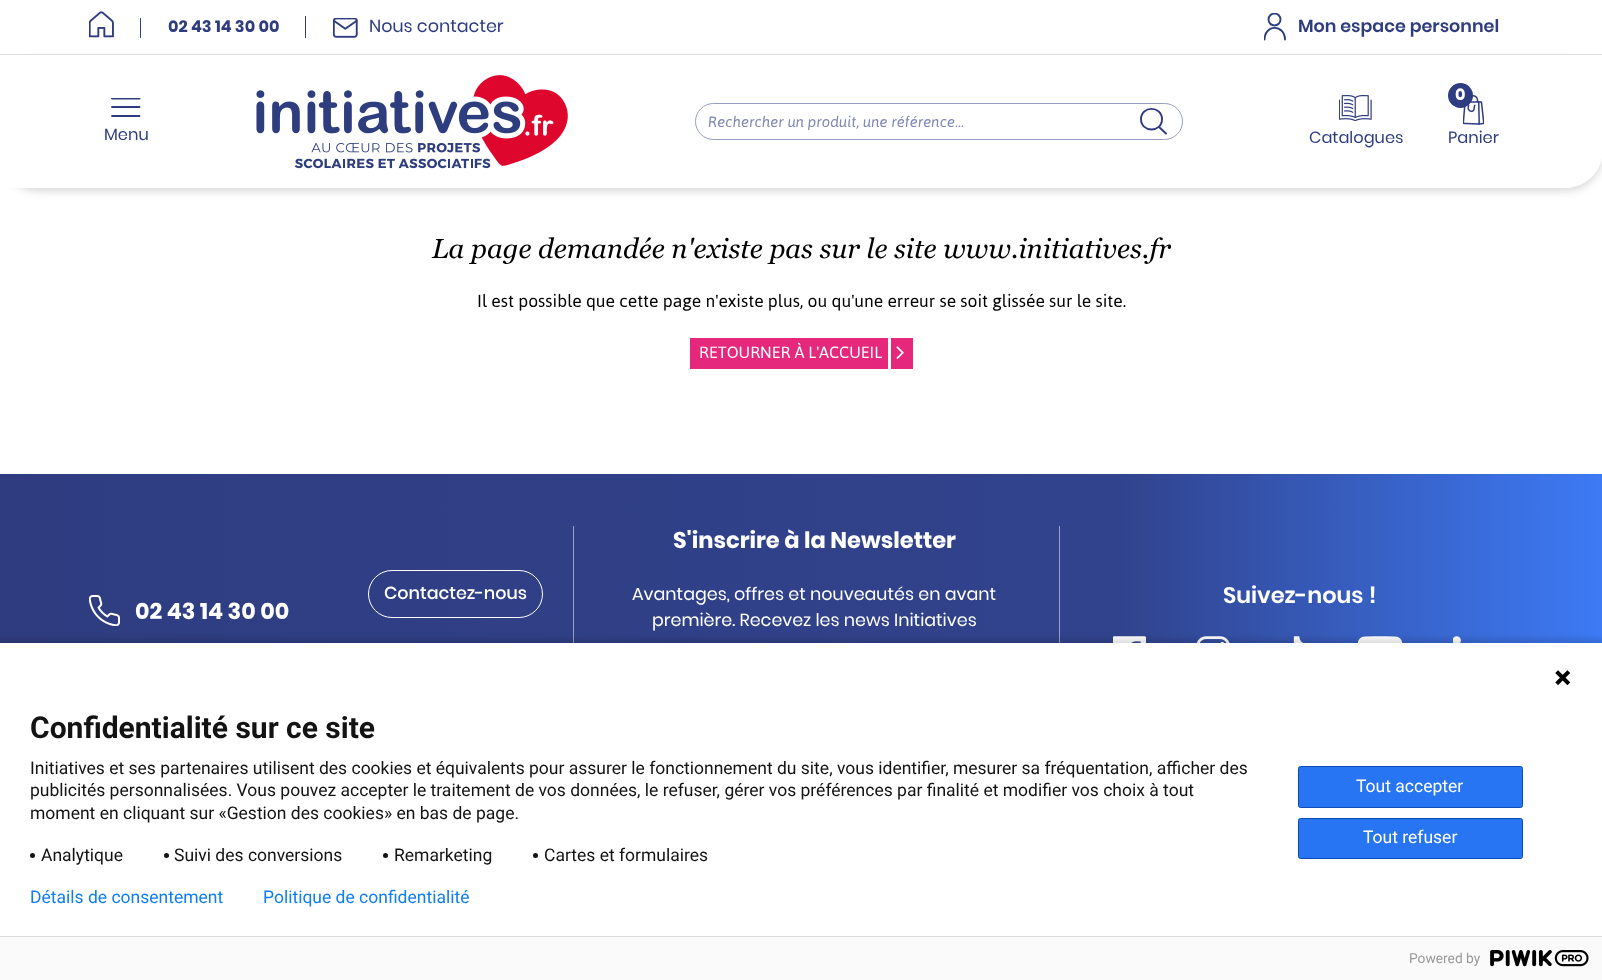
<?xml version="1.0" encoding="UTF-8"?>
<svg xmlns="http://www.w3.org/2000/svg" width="1602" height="980">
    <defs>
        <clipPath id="clip1"><rect x="1264" y="13" width="22" height="28"/></clipPath>
        <filter id="blur1" x="-50%" y="-200%" width="200%" height="500%"><feGaussianBlur stdDeviation="4"/></filter>
        <clipPath id="clip2"><rect x="111" y="98" width="30" height="20"/></clipPath>
        <linearGradient id="g1" gradientUnits="userSpaceOnUse" x1="0" y1="622" x2="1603" y2="622"><stop offset="0" stop-color="#2F3C80"/><stop offset="0.7" stop-color="#31438D"/><stop offset="1" stop-color="#3D7AF5"/></linearGradient>
        <filter id="blur2" x="-50%" y="-200%" width="200%" height="500%"><feGaussianBlur stdDeviation="3"/></filter>
    </defs>
    <rect width="100%" height="100%" fill="#FFFFFF"/>
    <image x="89" y="11" width="25" height="27" href="img_01.png"/>
    <rect x="140" y="18" width="1" height="20" fill="#2F3C80"/>
    <text x="168" y="32" font-family="Poppins" font-size="16.25" font-weight="700" fill="#2F3C80">02 43 14 30 00</text>
    <rect x="305" y="16" width="1" height="22" fill="#2F3C80"/>
    <image x="333" y="18" width="25" height="20" href="img_02.png"/>
    <text x="369" y="32" font-family="Poppins" font-size="17.5" fill="#2F3C80">Nous contacter</text>
    <g clip-path="url(#clip1)">
        <circle cx="1274.5" cy="19.5" r="6" fill="none" stroke="#2F3C80" stroke-width="1.9"/>
        <path d="M 1264.5 39.5 C 1265 24 1284.5 24 1285 39.5" fill="none" stroke="#2F3C80" stroke-width="1.9" stroke-linecap="round" stroke-linejoin="round"/>
    </g>
    <text x="1298" y="32" font-family="Poppins" font-size="17.5" font-weight="600" fill="#2F3C80">Mon espace personnel</text>
    <rect x="0" y="59" width="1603" height="132" rx="38" fill="#000000" fill-opacity="0.16" filter="url(#blur1)"/>
    <rect x="0" y="54" width="1602" height="1" fill="#DEDEDE"/>
    <path d="M 0 55 H 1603 V 150 C 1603 171 1586 188 1565 188 H 0 Z" fill="#FFFFFF"/>
    <image x="256" y="75" width="312" height="94" href="img_03.png"/>
    <rect x="695.5" y="103.5" width="487" height="36" rx="18" fill="none" stroke="#979EC0"/>
    <text x="708" y="127" font-family="Asap" font-size="15" font-style="italic" fill="#8088B2">Rechercher un produit, une référence...</text>
    <path d="M 1162 119 C 1162 133 1141 133 1141 119 C 1141 105.5 1162 105.5 1162 119 Z M 1166 133.5 L 1159.5 127.5" fill="none" stroke="#2F3C80" stroke-width="1.9" stroke-linecap="round" stroke-linejoin="round"/>
    <image x="1339" y="95" width="33" height="26" href="img_04.png"/>
    <text x="1309" y="143" font-family="Poppins" font-size="16.25" fill="#2F3C80">Catalogues</text>
    <image x="1463" y="95" width="21" height="30" href="img_05.png"/>
    <circle cx="1460.5" cy="95.5" r="12.5" fill="#2F3C80"/>
    <text x="1455" y="100" font-family="Poppins" font-size="16.25" font-weight="700" fill="#FFFFFF">0</text>
    <text x="1448" y="143" font-family="Poppins" font-size="16.25" fill="#2F3C80">Panier</text>
    <path d="M 112 107 H 139.5" fill="none" stroke="#2F3C80" stroke-width="1.9" stroke-linecap="round" stroke-linejoin="round"/>
    <g clip-path="url(#clip2)">
        <path d="M 112 98.5 H 139.5" fill="none" stroke="#2F3C80" stroke-width="1.9" stroke-linecap="round" stroke-linejoin="round"/>
    </g>
    <path d="M 112 116 H 139.5" fill="none" stroke="#2F3C80" stroke-width="1.9" stroke-linecap="round" stroke-linejoin="round"/>
    <text x="104" y="140" font-family="Poppins" font-size="16.25" fill="#2F3C80">Menu</text>
    <text x="432" y="258" font-family="Georgia" font-size="27.5" font-style="italic" fill="#000000">La page demandée n'existe pas sur le site www.initiatives.fr</text>
    <text x="477" y="307" font-family="Asap" font-size="17.5" fill="#000000">Il est possible que cette page n'existe plus, ou qu'une erreur se soit glissée sur le site.</text>
    <rect x="690" y="338" width="223" height="31" fill="#E5287C"/>
    <text x="699" y="358" font-family="Asap" font-size="16.25" fill="#FFFFFF">RETOURNER À L'ACCUEIL</text>
    <rect x="888" y="338" width="3" height="31" fill="#FFFFFF"/>
    <image x="896" y="346" width="8" height="13" href="img_06.png"/>
    <rect x="0" y="474" width="1602" height="169" fill="url(#g1)"/>
    <rect x="368.5" y="570.5" width="174" height="47" rx="23.5" fill="none" stroke="#FFFFFF"/>
    <text x="384" y="599" font-family="Poppins" font-size="17.5" font-weight="500" fill="#FFFFFF">Contactez-nous</text>
    <image x="89" y="595" width="31" height="31" href="img_07.png"/>
    <text x="135" y="619" font-family="Poppins" font-size="22.5" font-weight="700" fill="#FFFFFF">02 43 14 30 00</text>
    <rect x="573" y="526" width="1" height="117" fill="#98A0C3"/>
    <text x="673" y="548" font-family="Poppins" font-size="22.5" font-weight="700" fill="#FFFFFF">S'inscrire à la Newsletter</text>
    <text x="632" y="600" font-family="Poppins" font-size="17.5" fill="#FFFFFF">Avantages, offres et nouveautés en avant</text>
    <text x="652" y="626" font-family="Poppins" font-size="17.5" fill="#FFFFFF">première. Recevez les news Initiatives</text>
    <rect x="1059" y="526" width="1" height="117" fill="#98A1C6"/>
    <text x="1223" y="603" font-family="Poppins" font-size="22.5" font-weight="600" fill="#FFFFFF">Suivez-nous !</text>
    <image x="1113" y="636" width="33" height="7" href="img_08.png"/>
    <image x="1196" y="636" width="34" height="7" href="img_09.png"/>
    <image x="1293" y="636" width="10" height="7" href="img_10.png"/>
    <image x="1358" y="636" width="45" height="7" href="img_11.png"/>
    <image x="1453" y="636" width="8" height="7" href="img_12.png"/>
    <rect x="-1" y="639" width="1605" height="340" fill="#000000" fill-opacity="0.14" filter="url(#blur2)"/>
    <rect x="0" y="643" width="1602" height="293" fill="#FFFFFF"/>
    <image x="1555" y="670" width="16" height="16" href="img_13.png"/>
    <text x="30" y="738" font-family="Roboto" font-size="30" font-weight="700" fill="#131313">Confidentialité sur ce site</text>
    <text font-family="Roboto" font-size="17.5" fill="#131313">
        <tspan x="30" y="774">Initiatives et ses partenaires utilisent des cookies et équivalents pour assurer le fonctionnement du site, vous identifier, mesurer sa fréquentation, afficher des</tspan>
        <tspan x="30" y="796">publicités personnalisées. Vous pouvez accepter le traitement de vos données, le refuser, gérer vos préférences par finalité et modifier vos choix à tout</tspan>
        <tspan x="30" y="819">moment en cliquant sur «Gestion des cookies» en bas de page.</tspan>
    </text>
    <circle cx="32.5" cy="855.5" r="2.5" fill="#131313"/>
    <text x="41" y="861" font-family="Roboto" font-size="17.5" fill="#131313">Analytique</text>
    <circle cx="166.5" cy="855.5" r="2.5" fill="#131313"/>
    <text x="174" y="861" font-family="Roboto" font-size="17.5" fill="#131313">Suivi des conversions</text>
    <circle cx="385.5" cy="855.5" r="2.5" fill="#131313"/>
    <text x="394" y="861" font-family="Roboto" font-size="17.5" fill="#131313">Remarketing</text>
    <circle cx="535.5" cy="855.5" r="2.5" fill="#131313"/>
    <text x="544" y="861" font-family="Roboto" font-size="17.5" fill="#131313">Cartes et formulaires</text>
    <rect x="1298.5" y="766.5" width="224" height="41" rx="2" fill="#2775F2" stroke="#0B4BB3"/>
    <text x="1356" y="792" font-family="Roboto" font-size="17.5" fill="#FFFFFF">Tout accepter</text>
    <rect x="1298.5" y="818.5" width="224" height="40" rx="2" fill="#2775F2" stroke="#0B4BB3"/>
    <text x="1363" y="843" font-family="Roboto" font-size="17.5" fill="#FFFFFF">Tout refuser</text>
    <text x="30" y="903" font-family="Roboto" font-size="17.5" fill="#107EF1">Détails de consentement</text>
    <text x="263" y="903" font-family="Roboto" font-size="17.5" fill="#107EF1">Politique de confidentialité</text>
    <rect x="0" y="937" width="1602" height="43" fill="#FAFAFA"/>
    <rect x="0" y="936" width="1602" height="1" fill="#DDDDDD"/>
    <text x="1409" y="963" font-family="Roboto" font-size="13.75" fill="#999999">Powered by</text>
    <image x="1490" y="950" width="99" height="17" href="img_14.png"/>
</svg>
